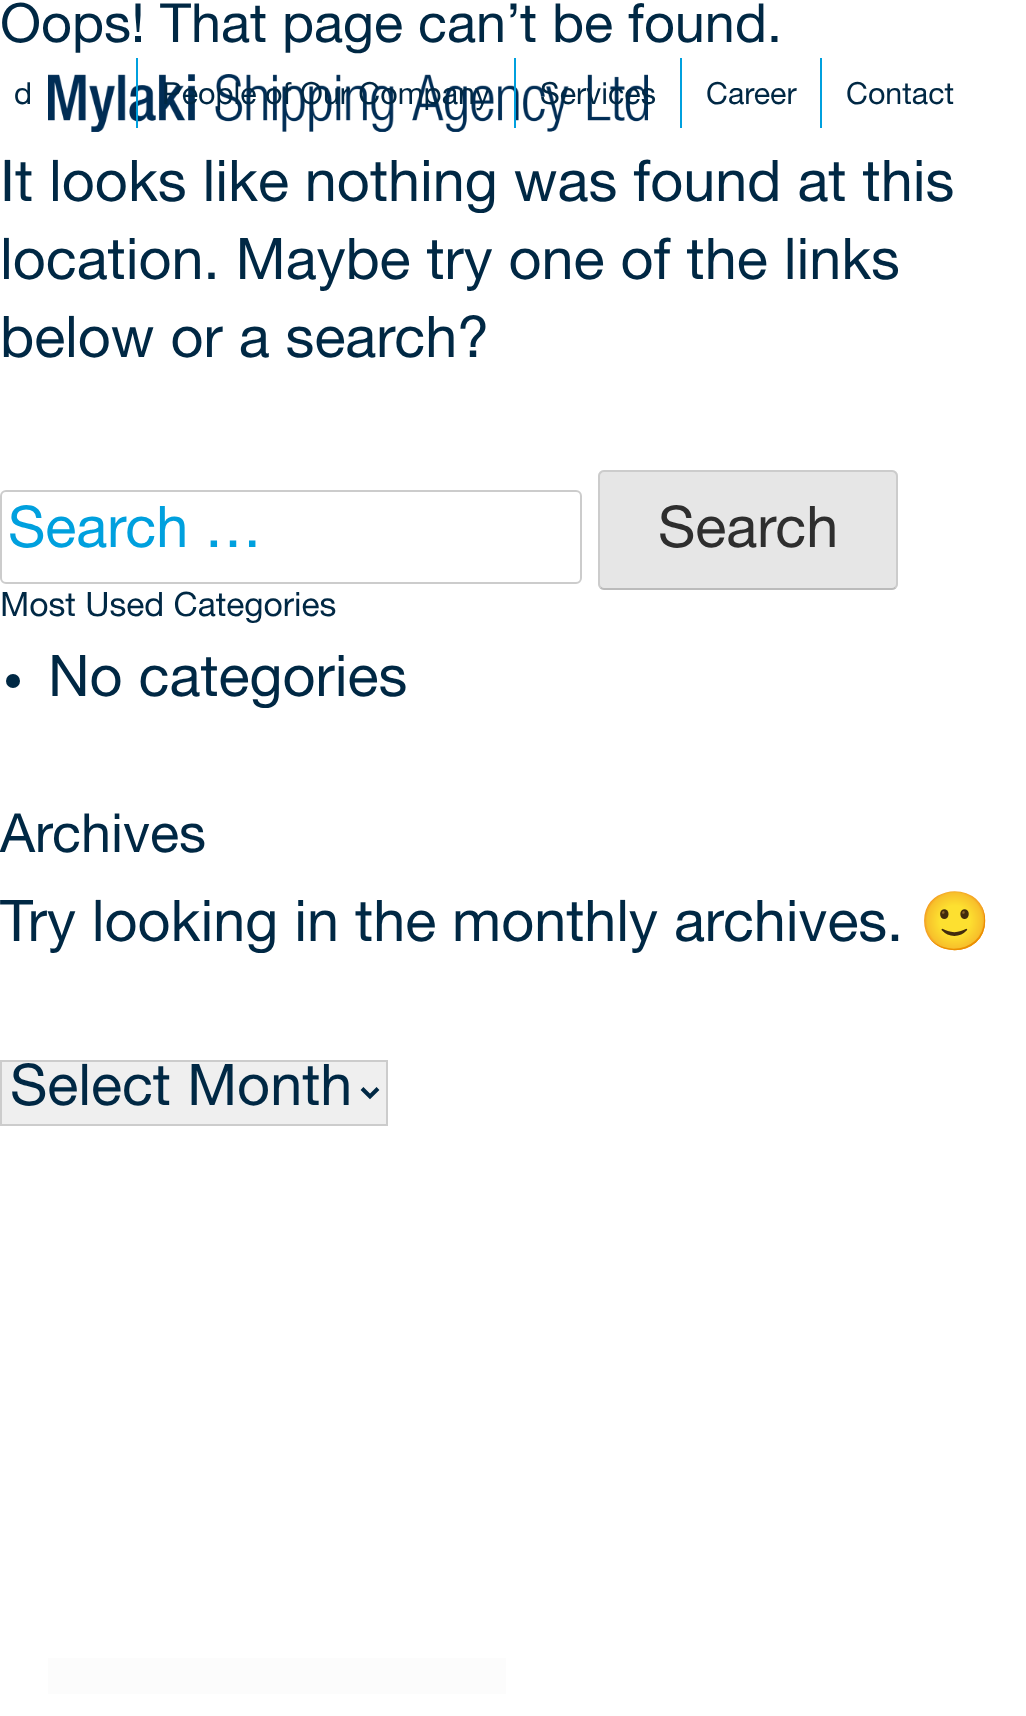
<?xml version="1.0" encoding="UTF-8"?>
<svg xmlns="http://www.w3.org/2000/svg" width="1026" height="1716">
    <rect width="100%" height="100%" fill="#FFFFFF"/>
    <text x="0" y="42" font-family="Helvetica Neue" font-size="54" fill="#002844">Oops! That page can’t be found.</text>
    <text font-family="Helvetica Neue" font-size="57.6" fill="#002844">
        <tspan x="0" y="201">It looks like nothing was found at this</tspan>
        <tspan x="0" y="279">location. Maybe try one of the links</tspan>
        <tspan x="0" y="357">below or a search?</tspan>
    </text>
    <rect x="1" y="491" width="580" height="92" rx="5" fill="none" stroke="#CCCCCC" stroke-width="2"/>
    <text x="8" y="547" font-family="Helvetica Neue" font-size="57.6" fill="#00A0DE">Search …</text>
    <rect x="598" y="470" width="300" height="120" rx="6" fill="#E6E6E6"/>
    <path d="M 895.5 587.5 C 894.5 588.5 893.5 589 892 589 H 604 C 602.5 589 601.5 588.5 600.5 587.5" fill="none" stroke="#BBBBBB" stroke-width="2"/>
    <path d="M 600.5 587.5 C 599.5 586.5 599 585.5 599 584 V 476 C 599 474.5 599.5 473.5 600.5 472.5 C 601.5 471.5 602.5 471 604 471 H 892 C 893.5 471 894.5 471.5 895.5 472.5 C 896.5 473.5 897 474.5 897 476 V 584 C 897 585.5 896.5 586.5 895.5 587.5" fill="none" stroke="#CCCCCC" stroke-width="2"/>
    <text x="658" y="547" font-family="Helvetica Neue" font-size="57.6" fill="#2E2E2E">Search</text>
    <text x="0" y="616" font-family="Helvetica Neue" font-size="33.6" fill="#002844">Most Used Categories</text>
    <circle cx="13" cy="681" r="7" fill="#002844"/>
    <text x="48" y="696" font-family="Helvetica Neue" font-size="57.6" fill="#002844">No categories</text>
    <text x="0" y="852" font-family="Helvetica Neue" font-size="54" fill="#002844">Archives</text>
    <text x="0" y="941" font-family="Helvetica Neue" font-size="57.6" fill="#002844">Try looking in the monthly archives.</text>
    <text x="919" y="941" font-family="Noto Color Emoji" font-size="57.6" fill="#002844">🙂</text>
    <rect x="1" y="1061" width="386" height="64" fill="#EFEFEF" stroke="#CCCCCC" stroke-width="2"/>
    <path d="M 362 1088.5 L 370 1096.5 L 378 1088.5" fill="none" stroke="#002844" stroke-width="4"/>
    <text x="10" y="1105" font-family="Helvetica Neue" font-size="57.6" fill="#002844">Select Month</text>
    <image x="48" y="74" width="600" height="58" href="img_01.png"/>
    <rect x="136" y="58" width="2" height="70" fill="#00A0DE"/>
    <text x="14" y="104" font-family="Helvetica Neue" font-size="30.4" fill="#002844">d</text>
    <rect x="514" y="58" width="2" height="70" fill="#00A0DE"/>
    <text x="162" y="104" font-family="Helvetica Neue" font-size="30.4" fill="#002844">People of Our Company</text>
    <rect x="680" y="58" width="2" height="70" fill="#00A0DE"/>
    <text x="540" y="104" font-family="Helvetica Neue" font-size="30.4" fill="#002844">Services</text>
    <rect x="820" y="58" width="2" height="70" fill="#00A0DE"/>
    <text x="706" y="104" font-family="Helvetica Neue" font-size="30.4" fill="#002844">Career</text>
    <text x="846" y="104" font-family="Helvetica Neue" font-size="30.4" fill="#002844">Contact</text>
    <rect x="48" y="1658" width="458" height="36" fill="#FCFCFC"/>
</svg>
